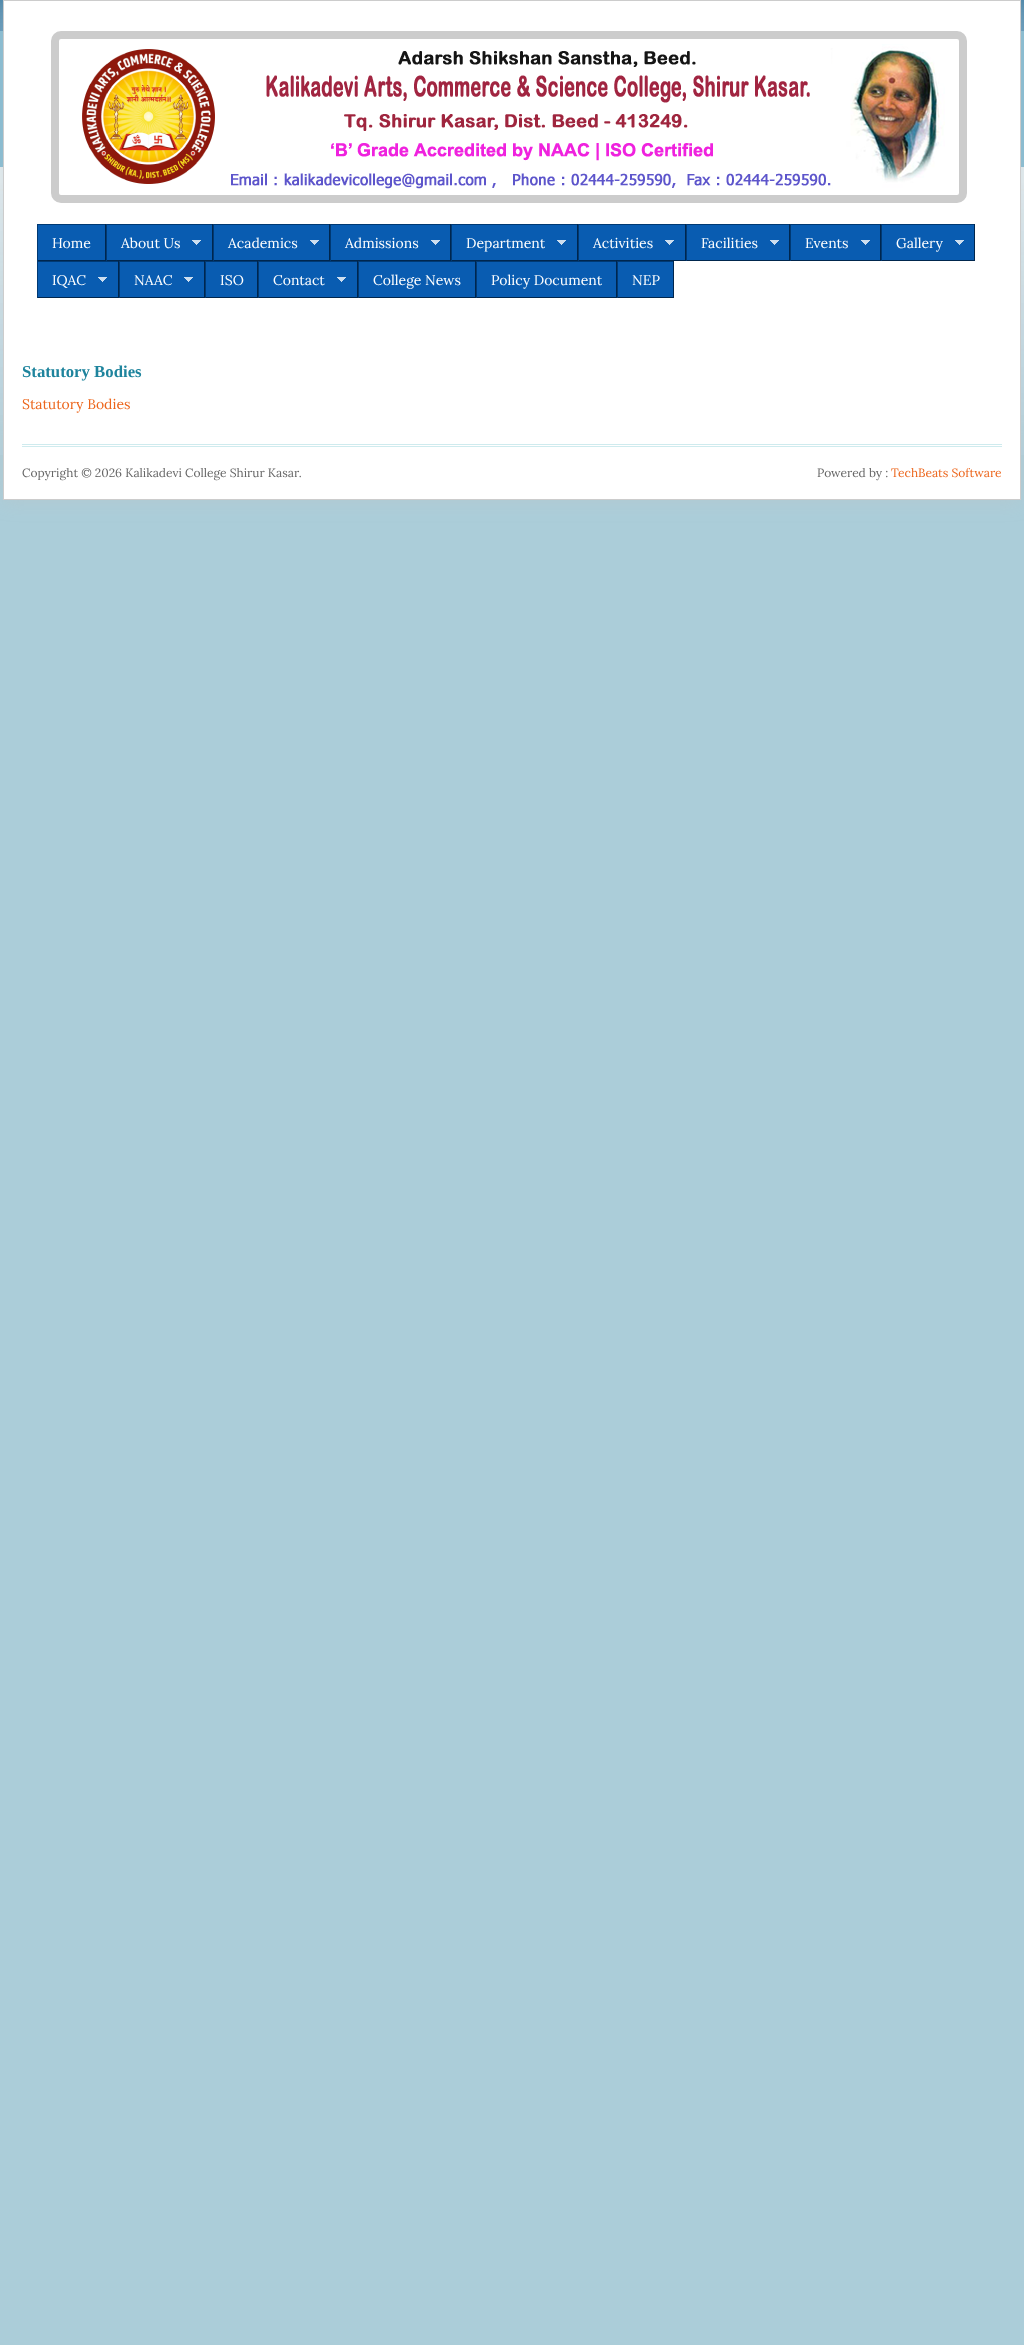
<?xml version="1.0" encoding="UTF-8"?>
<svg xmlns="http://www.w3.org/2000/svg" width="1024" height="2345">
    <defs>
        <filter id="blur1" x="-50%" y="-200%" width="200%" height="500%"><feGaussianBlur stdDeviation="10"/></filter>
    </defs>
    <rect width="100%" height="100%" fill="#ABCDD9"/>
    <image x="0" y="0" width="1024" height="455" href="img_01.png"/>
    <rect x="3" y="0" width="1018" height="500" fill="#C0C0C0" fill-opacity="0.4" filter="url(#blur1)"/>
    <rect x="3.5" y="0.5" width="1017" height="499" fill="#FFFFFF" stroke="#CCCCCC"/>
    <rect x="55" y="35" width="908" height="164" rx="6" fill="none" stroke="#CCCCCC" stroke-width="8"/>
    <image x="82" y="44" width="863" height="145" href="img_02.png"/>
    <rect x="38" y="225" width="67" height="35" fill="#095CB1"/>
    <rect x="37" y="224" width="938" height="1" fill="#003973"/>
    <rect x="105" y="224" width="1" height="37" fill="#00264D"/>
    <rect x="37" y="260" width="69" height="1" fill="#00264D"/>
    <rect x="37" y="224" width="1" height="37" fill="#003973"/>
    <text x="52" y="248" font-family="Lora" font-size="14" fill="#FFFFFF">Home</text>
    <rect x="107" y="225" width="105" height="35" fill="#095CB1"/>
    <rect x="212" y="224" width="1" height="37" fill="#00264D"/>
    <rect x="106" y="260" width="107" height="1" fill="#00264D"/>
    <rect x="106" y="224" width="1" height="37" fill="#003973"/>
    <text x="121" y="248" font-family="Lora" font-size="14" fill="#FFFFFF">About Us</text>
    <image x="192" y="240" width="9" height="5" href="img_03.png"/>
    <rect x="214" y="225" width="115" height="35" fill="#095CB1"/>
    <rect x="329" y="224" width="1" height="37" fill="#00264D"/>
    <rect x="213" y="260" width="117" height="1" fill="#00264D"/>
    <rect x="213" y="224" width="1" height="37" fill="#003973"/>
    <text x="228" y="248" font-family="Lora" font-size="14" fill="#FFFFFF">Academics</text>
    <image x="310" y="240" width="9" height="5" href="img_03.png"/>
    <rect x="331" y="225" width="119" height="35" fill="#095CB1"/>
    <rect x="450" y="224" width="1" height="37" fill="#00264D"/>
    <rect x="330" y="260" width="121" height="1" fill="#00264D"/>
    <rect x="330" y="224" width="1" height="37" fill="#003973"/>
    <text x="345" y="248" font-family="Lora" font-size="14" fill="#FFFFFF">Admissions</text>
    <image x="431" y="240" width="9" height="5" href="img_03.png"/>
    <rect x="452" y="225" width="125" height="35" fill="#095CB1"/>
    <rect x="577" y="224" width="1" height="37" fill="#00264D"/>
    <rect x="451" y="260" width="127" height="1" fill="#00264D"/>
    <rect x="451" y="224" width="1" height="37" fill="#003973"/>
    <text x="466" y="248" font-family="Lora" font-size="14" fill="#FFFFFF">Department</text>
    <image x="557" y="240" width="9" height="5" href="img_03.png"/>
    <rect x="579" y="225" width="106" height="35" fill="#095CB1"/>
    <rect x="685" y="224" width="1" height="37" fill="#00264D"/>
    <rect x="578" y="260" width="108" height="1" fill="#00264D"/>
    <rect x="578" y="224" width="1" height="37" fill="#003973"/>
    <text x="593" y="248" font-family="Lora" font-size="14" fill="#FFFFFF">Activities</text>
    <image x="665" y="240" width="9" height="5" href="img_03.png"/>
    <rect x="687" y="225" width="102" height="35" fill="#095CB1"/>
    <rect x="789" y="224" width="1" height="37" fill="#00264D"/>
    <rect x="686" y="260" width="104" height="1" fill="#00264D"/>
    <rect x="686" y="224" width="1" height="37" fill="#003973"/>
    <text x="701" y="248" font-family="Lora" font-size="14" fill="#FFFFFF">Facilities</text>
    <image x="770" y="240" width="9" height="5" href="img_03.png"/>
    <rect x="791" y="225" width="89" height="35" fill="#095CB1"/>
    <rect x="880" y="224" width="1" height="37" fill="#00264D"/>
    <rect x="790" y="260" width="91" height="1" fill="#00264D"/>
    <rect x="790" y="224" width="1" height="37" fill="#003973"/>
    <text x="805" y="248" font-family="Lora" font-size="14" fill="#FFFFFF">Events</text>
    <image x="861" y="240" width="9" height="5" href="img_03.png"/>
    <rect x="882" y="225" width="92" height="35" fill="#095CB1"/>
    <rect x="974" y="224" width="1" height="37" fill="#00264D"/>
    <rect x="881" y="260" width="94" height="1" fill="#00264D"/>
    <rect x="881" y="224" width="1" height="37" fill="#003973"/>
    <text x="896" y="248" font-family="Lora" font-size="14" fill="#FFFFFF">Gallery</text>
    <image x="955" y="240" width="9" height="5" href="img_03.png"/>
    <rect x="38" y="262" width="80" height="35" fill="#095CB1"/>
    <rect x="37" y="261" width="637" height="1" fill="#003973"/>
    <rect x="118" y="261" width="1" height="37" fill="#00264D"/>
    <rect x="37" y="297" width="82" height="1" fill="#00264D"/>
    <rect x="37" y="261" width="1" height="37" fill="#003973"/>
    <text x="52" y="285" font-family="Lora" font-size="14" fill="#FFFFFF">IQAC</text>
    <image x="98" y="277" width="9" height="5" href="img_03.png"/>
    <rect x="120" y="262" width="84" height="35" fill="#095CB1"/>
    <rect x="204" y="261" width="1" height="37" fill="#00264D"/>
    <rect x="119" y="297" width="86" height="1" fill="#00264D"/>
    <rect x="119" y="261" width="1" height="37" fill="#003973"/>
    <text x="134" y="285" font-family="Lora" font-size="14" fill="#FFFFFF">NAAC</text>
    <image x="184" y="277" width="9" height="5" href="img_03.png"/>
    <rect x="206" y="262" width="51" height="35" fill="#095CB1"/>
    <rect x="257" y="261" width="1" height="37" fill="#00264D"/>
    <rect x="205" y="297" width="53" height="1" fill="#00264D"/>
    <rect x="205" y="261" width="1" height="37" fill="#003973"/>
    <text x="220" y="285" font-family="Lora" font-size="14" fill="#FFFFFF">ISO</text>
    <rect x="259" y="262" width="98" height="35" fill="#095CB1"/>
    <rect x="357" y="261" width="1" height="37" fill="#00264D"/>
    <rect x="258" y="297" width="100" height="1" fill="#00264D"/>
    <rect x="258" y="261" width="1" height="37" fill="#003973"/>
    <text x="273" y="285" font-family="Lora" font-size="14" fill="#FFFFFF">Contact</text>
    <image x="337" y="277" width="9" height="5" href="img_03.png"/>
    <rect x="359" y="262" width="116" height="35" fill="#095CB1"/>
    <rect x="475" y="261" width="1" height="37" fill="#00264D"/>
    <rect x="358" y="297" width="118" height="1" fill="#00264D"/>
    <rect x="358" y="261" width="1" height="37" fill="#003973"/>
    <text x="373" y="285" font-family="Lora" font-size="14" fill="#FFFFFF">College News</text>
    <rect x="477" y="262" width="139" height="35" fill="#095CB1"/>
    <rect x="616" y="261" width="1" height="37" fill="#00264D"/>
    <rect x="476" y="297" width="141" height="1" fill="#00264D"/>
    <rect x="476" y="261" width="1" height="37" fill="#003973"/>
    <text x="491" y="285" font-family="Lora" font-size="14" fill="#FFFFFF">Policy Document</text>
    <rect x="618" y="262" width="55" height="35" fill="#095CB1"/>
    <rect x="673" y="261" width="1" height="37" fill="#00264D"/>
    <rect x="617" y="297" width="57" height="1" fill="#00264D"/>
    <rect x="617" y="261" width="1" height="37" fill="#003973"/>
    <text x="632" y="285" font-family="Lora" font-size="14" fill="#FFFFFF">NEP</text>
    <text x="22" y="377" font-family="Liberation Serif" font-size="16.75" font-weight="700" fill="#1E849D">Statutory Bodies</text>
    <text x="22" y="409" font-family="Lora" font-size="14" fill="#EC651B">Statutory Bodies</text>
    <rect x="22" y="444" width="980" height="1" fill="#CFEBEE"/>
    <rect x="22" y="446" width="980" height="1" fill="#CFEBEE"/>
    <text x="22" y="477" font-family="Lora" font-size="12" fill="#666666">Copyright © 2026 Kalikadevi College Shirur Kasar.</text>
    <text x="817" y="477" font-family="Lora" font-size="12" fill="#666666">Powered by :</text>
    <text x="891" y="477" font-family="Lora" font-size="12" fill="#EC651B">TechBeats Software</text>
</svg>
